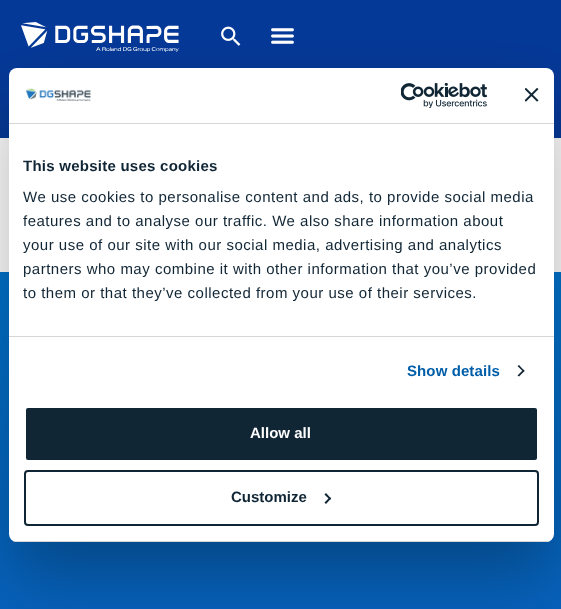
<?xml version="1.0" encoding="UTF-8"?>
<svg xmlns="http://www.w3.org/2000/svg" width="561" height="609">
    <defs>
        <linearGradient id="g1" gradientUnits="userSpaceOnUse" x1="280" y1="272" x2="281" y2="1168"><stop offset="0" stop-color="#0073CD"/><stop offset="1" stop-color="#12439C"/></linearGradient>
        <filter id="blur1" x="-50%" y="-200%" width="200%" height="500%"><feGaussianBlur stdDeviation="34"/></filter>
        <clipPath id="clip1"><rect x="9" y="68" width="545" height="474" rx="8"/></clipPath>
    </defs>
    <rect width="100%" height="100%" fill="#FFFFFF"/>
    <rect x="0" y="0" width="561" height="138" fill="#053998"/>
    <image x="21" y="22" width="158" height="30" href="img_01.png"/>
    <image x="221" y="26" width="20" height="20" href="img_02.png"/>
    <image x="271" y="28" width="23" height="16" href="img_03.png"/>
    <rect x="0" y="272" width="561" height="337" fill="url(#g1)"/>
    <rect x="9" y="100" width="545" height="474" rx="8" fill="#000000" fill-opacity="0.3" filter="url(#blur1)"/>
    <rect x="9" y="68" width="545" height="474" rx="8" fill="#FFFFFF"/>
    <rect x="9" y="123" width="545" height="1" fill="#D6D6D6"/>
    <image x="25" y="88" width="66" height="14" href="img_04.png"/>
    <image x="401" y="83" width="87" height="25" href="img_05.png"/>
    <image x="525" y="88" width="14" height="14" href="img_06.png"/>
    <rect x="9" y="336" width="545" height="1" fill="#D6D6D6"/>
    <text x="23" y="171" font-family="Liberation Sans" font-size="15" font-weight="700" letter-spacing="0.25" fill="#112635">This website uses cookies</text>
    <text font-family="Liberation Sans" font-size="15" letter-spacing="0.5" fill="#112635">
        <tspan x="23" y="202">We use cookies to personalise content and ads, to provide social media</tspan>
        <tspan x="23" y="226">features and to analyse our traffic. We also share information about</tspan>
        <tspan x="23" y="250">your use of our site with our social media, advertising and analytics</tspan>
        <tspan x="23" y="274">partners who may combine it with other information that you’ve provided</tspan>
        <tspan x="23" y="298">to them or that they’ve collected from your use of their services.</tspan>
    </text>
    <text x="407" y="376" font-family="Liberation Sans" font-size="15" font-weight="700" letter-spacing="0.1" fill="#005EA9">Show details</text>
    <path d="M 519 365 L 524.5 371 L 523.5 372 L 517.5 366 Z" fill="#112635"/>
    <path d="M 523.5 369.5 L 524.5 371 L 519 376.5 L 517.5 375.5 Z" fill="#112635"/>
    <g clip-path="url(#clip1)">
        <rect x="9" y="541" width="545" height="1" fill="#D6D6D6"/>
    </g>
    <rect x="25" y="407" width="513" height="54" rx="3" fill="#112635" stroke="#FFFFFF" stroke-width="2"/>
    <text x="250" y="438" font-family="Liberation Sans" font-size="15" font-weight="700" fill="#FFFFFF">Allow all</text>
    <rect x="25" y="471" width="513" height="54" rx="3" fill="none" stroke="#112635" stroke-width="2"/>
    <text x="231" y="502" font-family="Liberation Sans" font-size="15" font-weight="700" fill="#112635">Customize</text>
    <path d="M 326 493 L 331 498.5 L 330 500 L 324.5 494.5 Z" fill="#112635"/>
    <path d="M 330 497 L 331 498.5 L 326 504 L 324.5 502.5 Z" fill="#112635"/>
</svg>
